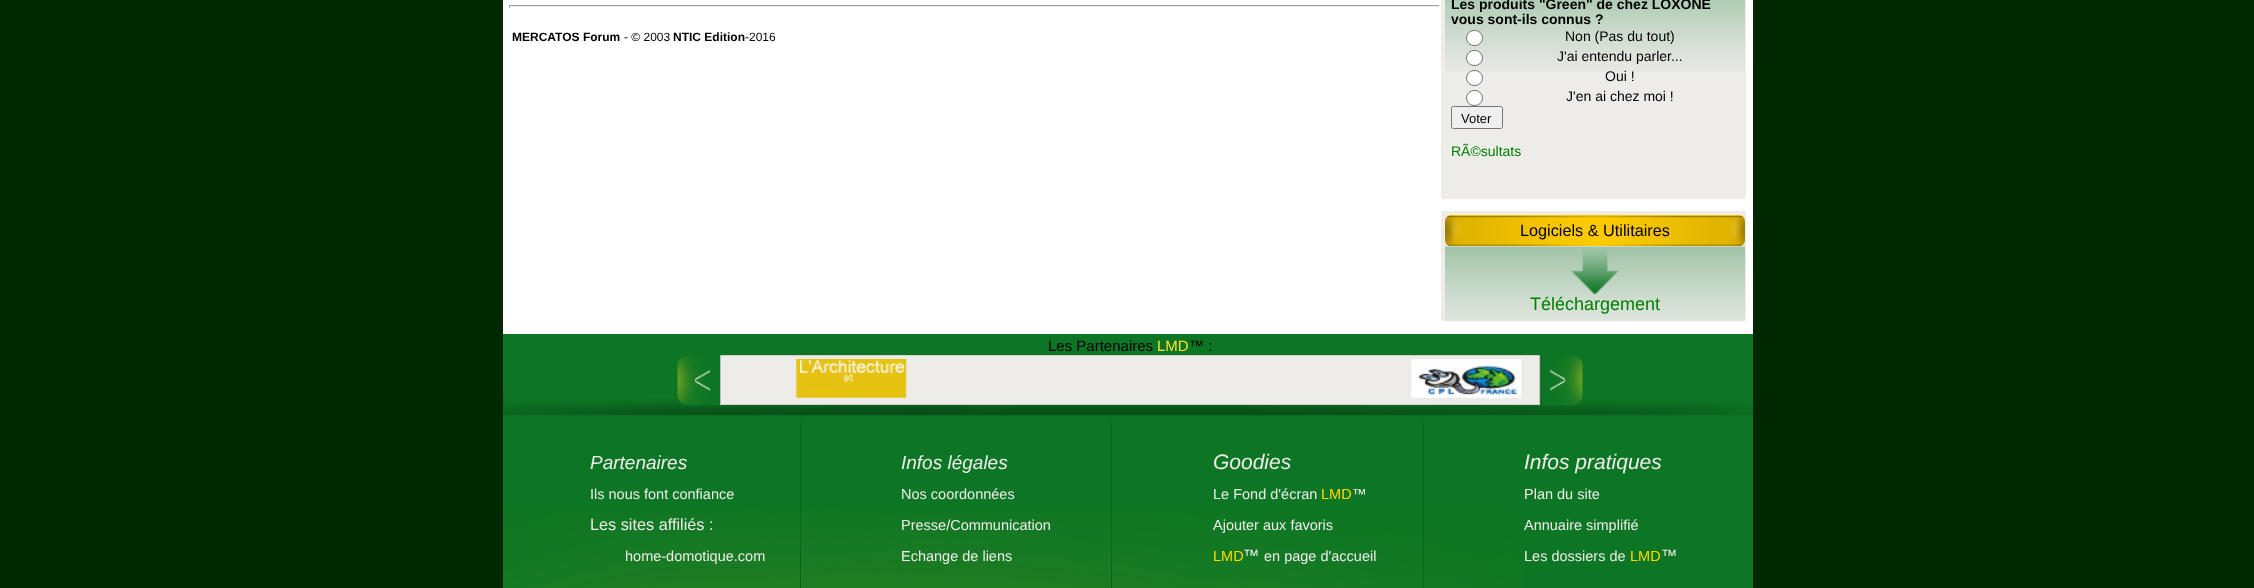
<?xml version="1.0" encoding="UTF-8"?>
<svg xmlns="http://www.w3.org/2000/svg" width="2254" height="588">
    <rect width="100%" height="100%" fill="#002800"/>
    <rect x="503" y="0" width="1250" height="334" fill="#FFFFFF"/>
    <rect x="509" y="5" width="931" height="1" fill="#9F9F9F"/>
    <rect x="1439" y="5" width="1" height="3" fill="#EEEEEE"/>
    <rect x="509" y="6" width="931" height="1" fill="#EEEEEE"/>
    <rect x="509" y="5" width="1" height="3" fill="#9F9F9F"/>
    <text x="512" y="41" font-family="Liberation Sans" font-size="12" font-weight="700" fill="#000000">MERCATOS Forum</text>
    <text x="624" y="41" font-family="Liberation Sans" font-size="12" fill="#000000">- © 2003</text>
    <text x="673" y="41" font-family="Liberation Sans" font-size="12" font-weight="700" fill="#000000">NTIC Edition</text>
    <text x="745" y="41" font-family="Liberation Sans" font-size="12" fill="#000000">-2016</text>
    <path d="M 1441 -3 H 1746 V 196.5 C 1746 198 1745 199 1743.5 199 H 1443.5 C 1442 199 1441 198 1441 196.5 Z" fill="#EDECE9"/>
    <image x="1445" y="0" width="300" height="72" href="img_01.png"/>
    <text font-family="Liberation Sans" font-size="14" font-weight="700" fill="#000000">
        <tspan x="1451" y="9">Les produits "Green" de chez LOXONE</tspan>
        <tspan x="1451" y="24">vous sont-ils connus ?</tspan>
    </text>
    <rect x="1466.5" y="30.5" width="16" height="15" rx="7.5" fill="#FFFFFF" stroke="#767676"/>
    <text x="1565" y="41" font-family="Liberation Sans" font-size="14" fill="#000000">Non (Pas du tout)</text>
    <rect x="1466.5" y="50.5" width="16" height="15" rx="7.5" fill="#FFFFFF" stroke="#767676"/>
    <text x="1557" y="61" font-family="Liberation Sans" font-size="14" fill="#000000">J'ai entendu parler...</text>
    <rect x="1466.5" y="70.5" width="16" height="15" rx="7.5" fill="#FFFFFF" stroke="#767676"/>
    <text x="1605" y="81" font-family="Liberation Sans" font-size="14" fill="#000000">Oui !</text>
    <rect x="1466.5" y="90.5" width="16" height="15" rx="7.5" fill="#FFFFFF" stroke="#767676"/>
    <text x="1566" y="101" font-family="Liberation Sans" font-size="14" fill="#000000">J'en ai chez moi !</text>
    <rect x="1451.5" y="106.5" width="51" height="22" rx="2" fill="#EFEFEF" stroke="#767676"/>
    <text x="1461" y="123" font-family="Liberation Sans" font-size="13" fill="#000000">Voter</text>
    <text x="1451" y="156" font-family="Liberation Sans" font-size="14" fill="#008000">RÃ©sultats</text>
    <path d="M 1441 211 H 1746 V 318.5 C 1746 320 1745 321 1743.5 321 H 1443.5 C 1442 321 1441 320 1441 318.5 Z" fill="#EDECE9"/>
    <rect x="1445" y="215" width="300" height="31" rx="6" fill="#FFCC00"/>
    <image x="1445" y="215" width="300" height="32" href="img_02.png"/>
    <text x="1520" y="236" font-family="Liberation Sans" font-size="16.25" fill="#000000">Logiciels &amp; Utilitaires</text>
    <image x="1445" y="246" width="300" height="76" href="img_03.png"/>
    <image x="1571" y="248" width="48" height="46" href="img_04.png"/>
    <text x="1530" y="310" font-family="Liberation Sans" font-size="18" fill="#008000">Téléchargement</text>
    <rect x="503" y="334" width="1250" height="254" fill="#0D7624"/>
    <image x="503" y="511" width="1021" height="77" href="img_05.png"/>
    <image x="503" y="399" width="1250" height="17" href="img_06.png"/>
    <text x="1048" y="351" font-family="Liberation Sans" font-size="15" fill="#000000">Les Partenaires</text>
    <text x="1157" y="351" font-family="Liberation Sans" font-size="15" fill="#FFE02A">LMD</text>
    <text x="1189" y="351" font-family="Liberation Sans" font-size="15" fill="#000000">™ :</text>
    <image x="677" y="355" width="45" height="51" href="img_07.png"/>
    <image x="1538" y="355" width="45" height="51" href="img_10.png"/>
    <rect x="721" y="356" width="818" height="48" fill="#EDECE9"/>
    <rect x="721" y="355" width="818" height="1" fill="#D1D0D1"/>
    <rect x="721" y="404" width="818" height="1" fill="#D1D0D1"/>
    <image x="796" y="359" width="111" height="39" href="img_08.png"/>
    <image x="1411" y="359" width="111" height="39" href="img_09.png"/>
    <rect x="800" y="421" width="1" height="167" fill="#0B631E"/>
    <text x="590" y="469" font-family="Liberation Sans" font-size="19" font-style="italic" fill="#EDECE9">Partenaires</text>
    <text x="590" y="499" font-family="Liberation Sans" font-size="14.5" fill="#EDECE9">Ils nous font confiance</text>
    <text x="590" y="530" font-family="Liberation Sans" font-size="16.25" fill="#EDECE9">Les sites affiliés :</text>
    <text x="625" y="561" font-family="Liberation Sans" font-size="14.5" fill="#EDECE9">home-domotique.com</text>
    <rect x="1111" y="421" width="1" height="167" fill="#0B631E"/>
    <text x="901" y="469" font-family="Liberation Sans" font-size="19" font-style="italic" fill="#EDECE9">Infos légales</text>
    <text x="901" y="499" font-family="Liberation Sans" font-size="14.5" fill="#EDECE9">Nos coordonnées</text>
    <text x="901" y="530" font-family="Liberation Sans" font-size="14.5" fill="#EDECE9">Presse/Communication</text>
    <text x="901" y="561" font-family="Liberation Sans" font-size="14.5" fill="#EDECE9">Echange de liens</text>
    <rect x="1423" y="421" width="1" height="167" fill="#0B631E"/>
    <text x="1213" y="469" font-family="Liberation Sans" font-size="21" font-style="italic" fill="#EDECE9">Goodies</text>
    <text x="1213" y="499" font-family="Liberation Sans" font-size="14.5" fill="#EDECE9">Le Fond d'écran</text>
    <text x="1321" y="499" font-family="Liberation Sans" font-size="14.5" fill="#FFD800">LMD</text>
    <text x="1352" y="499" font-family="Liberation Sans" font-size="14.5" fill="#EDECE9">™</text>
    <text x="1213" y="530" font-family="Liberation Sans" font-size="14.5" fill="#EDECE9">Ajouter aux favoris</text>
    <text x="1213" y="561" font-family="Liberation Sans" font-size="14.5" fill="#FFD800">LMD</text>
    <text x="1243" y="561" font-family="Liberation Sans" font-size="16.25" fill="#EDECE9">™</text>
    <text x="1264" y="561" font-family="Liberation Sans" font-size="14.5" fill="#EDECE9">en page d'accueil</text>
    <text x="1524" y="469" font-family="Liberation Sans" font-size="21" font-style="italic" fill="#EDECE9">Infos pratiques</text>
    <text x="1524" y="499" font-family="Liberation Sans" font-size="14.5" fill="#EDECE9">Plan du site</text>
    <text x="1524" y="530" font-family="Liberation Sans" font-size="14.5" fill="#EDECE9">Annuaire simplifié</text>
    <text x="1524" y="561" font-family="Liberation Sans" font-size="14.5" fill="#EDECE9">Les dossiers de</text>
    <text x="1630" y="561" font-family="Liberation Sans" font-size="14.5" fill="#FFD800">LMD</text>
    <text x="1661" y="561" font-family="Liberation Sans" font-size="16.25" fill="#EDECE9">™</text>
</svg>
